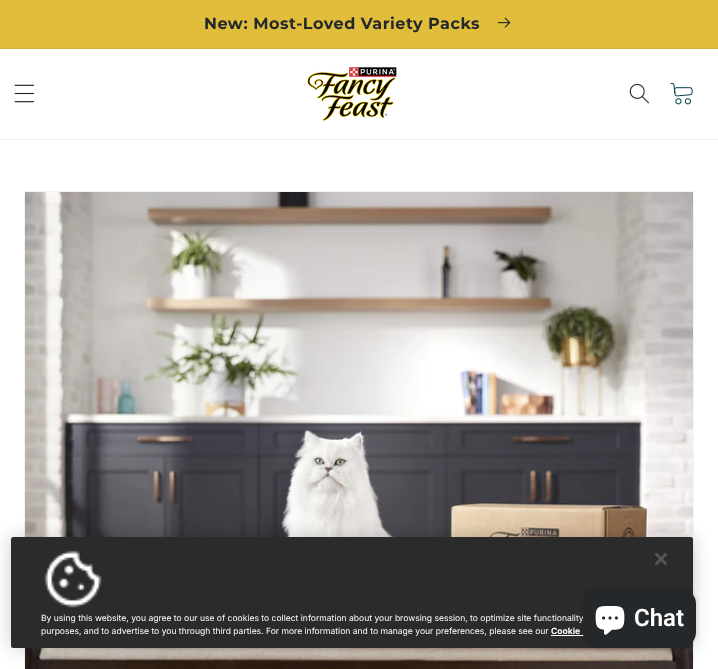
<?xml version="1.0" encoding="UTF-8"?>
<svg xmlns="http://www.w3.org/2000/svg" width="718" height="669">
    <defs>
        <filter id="blur1" x="-50%" y="-200%" width="200%" height="500%"><feGaussianBlur stdDeviation="9"/></filter>
        <filter id="blur2" x="-50%" y="-200%" width="200%" height="500%"><feGaussianBlur stdDeviation="2.5"/></filter>
    </defs>
    <rect width="100%" height="100%" fill="#FFFFFF"/>
    <rect x="0" y="0" width="718" height="48" fill="#E1BD3C"/>
    <rect x="0" y="48" width="718" height="1" fill="#D2B13B"/>
    <text x="204" y="29" font-family="Montserrat" font-size="16" font-weight="700" letter-spacing="0.5" fill="#25282B">New: Most-Loved Variety Packs</text>
    <image x="498" y="17" width="13" height="11" href="img_01.png"/>
    <rect x="0" y="139" width="718" height="1" fill="#EEEEEE"/>
    <image x="14" y="84" width="20" height="19" href="img_02.png"/>
    <image x="307" y="67" width="90" height="54" href="img_03.png"/>
    <image x="629" y="83" width="20" height="21" href="img_04.png"/>
    <image x="670" y="83" width="23" height="22" href="img_05.png"/>
    <rect x="24.5" y="191.5" width="669" height="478" fill="none" stroke="#F4F4F4"/>
    <image x="25" y="192" width="668" height="477" href="img_06.png"/>
    <rect x="11" y="537" width="682" height="111" rx="2.5" fill="#000000" fill-opacity="0.2" filter="url(#blur1)"/>
    <rect x="11" y="537" width="682" height="111" rx="2.5" fill="#2B2B2B"/>
    <image x="655" y="553" width="12" height="12" href="img_07.png"/>
    <image x="44" y="550" width="58" height="58" href="img_08.png"/>
    <text font-family="Inter" font-size="8.55" fill="#FFFFFF">
        <tspan x="41" y="621">By using this website, you agree to our use of cookies to collect information about your browsing session, to optimize site functionality,</tspan>
        <tspan x="41" y="634">purposes, and to advertise to you through third parties. For more information and to manage your preferences, please see our</tspan>
    </text>
    <text x="551" y="634" font-family="Inter" font-size="8.55" font-weight="700" fill="#FFFFFF">Cookie</text>
    <rect x="551" y="635" width="33" height="1" fill="#FFFFFF"/>
    <rect x="583" y="588" width="113" height="60" rx="16" fill="#000000" fill-opacity="0.15" filter="url(#blur2)"/>
    <rect x="583" y="588" width="113" height="60" rx="16" fill="#25282B"/>
    <image x="595" y="606" width="30" height="29" href="img_09.png"/>
    <text x="634" y="626" font-family="Roboto" font-size="24" font-weight="600" fill="#FFFFFF">Chat</text>
</svg>
